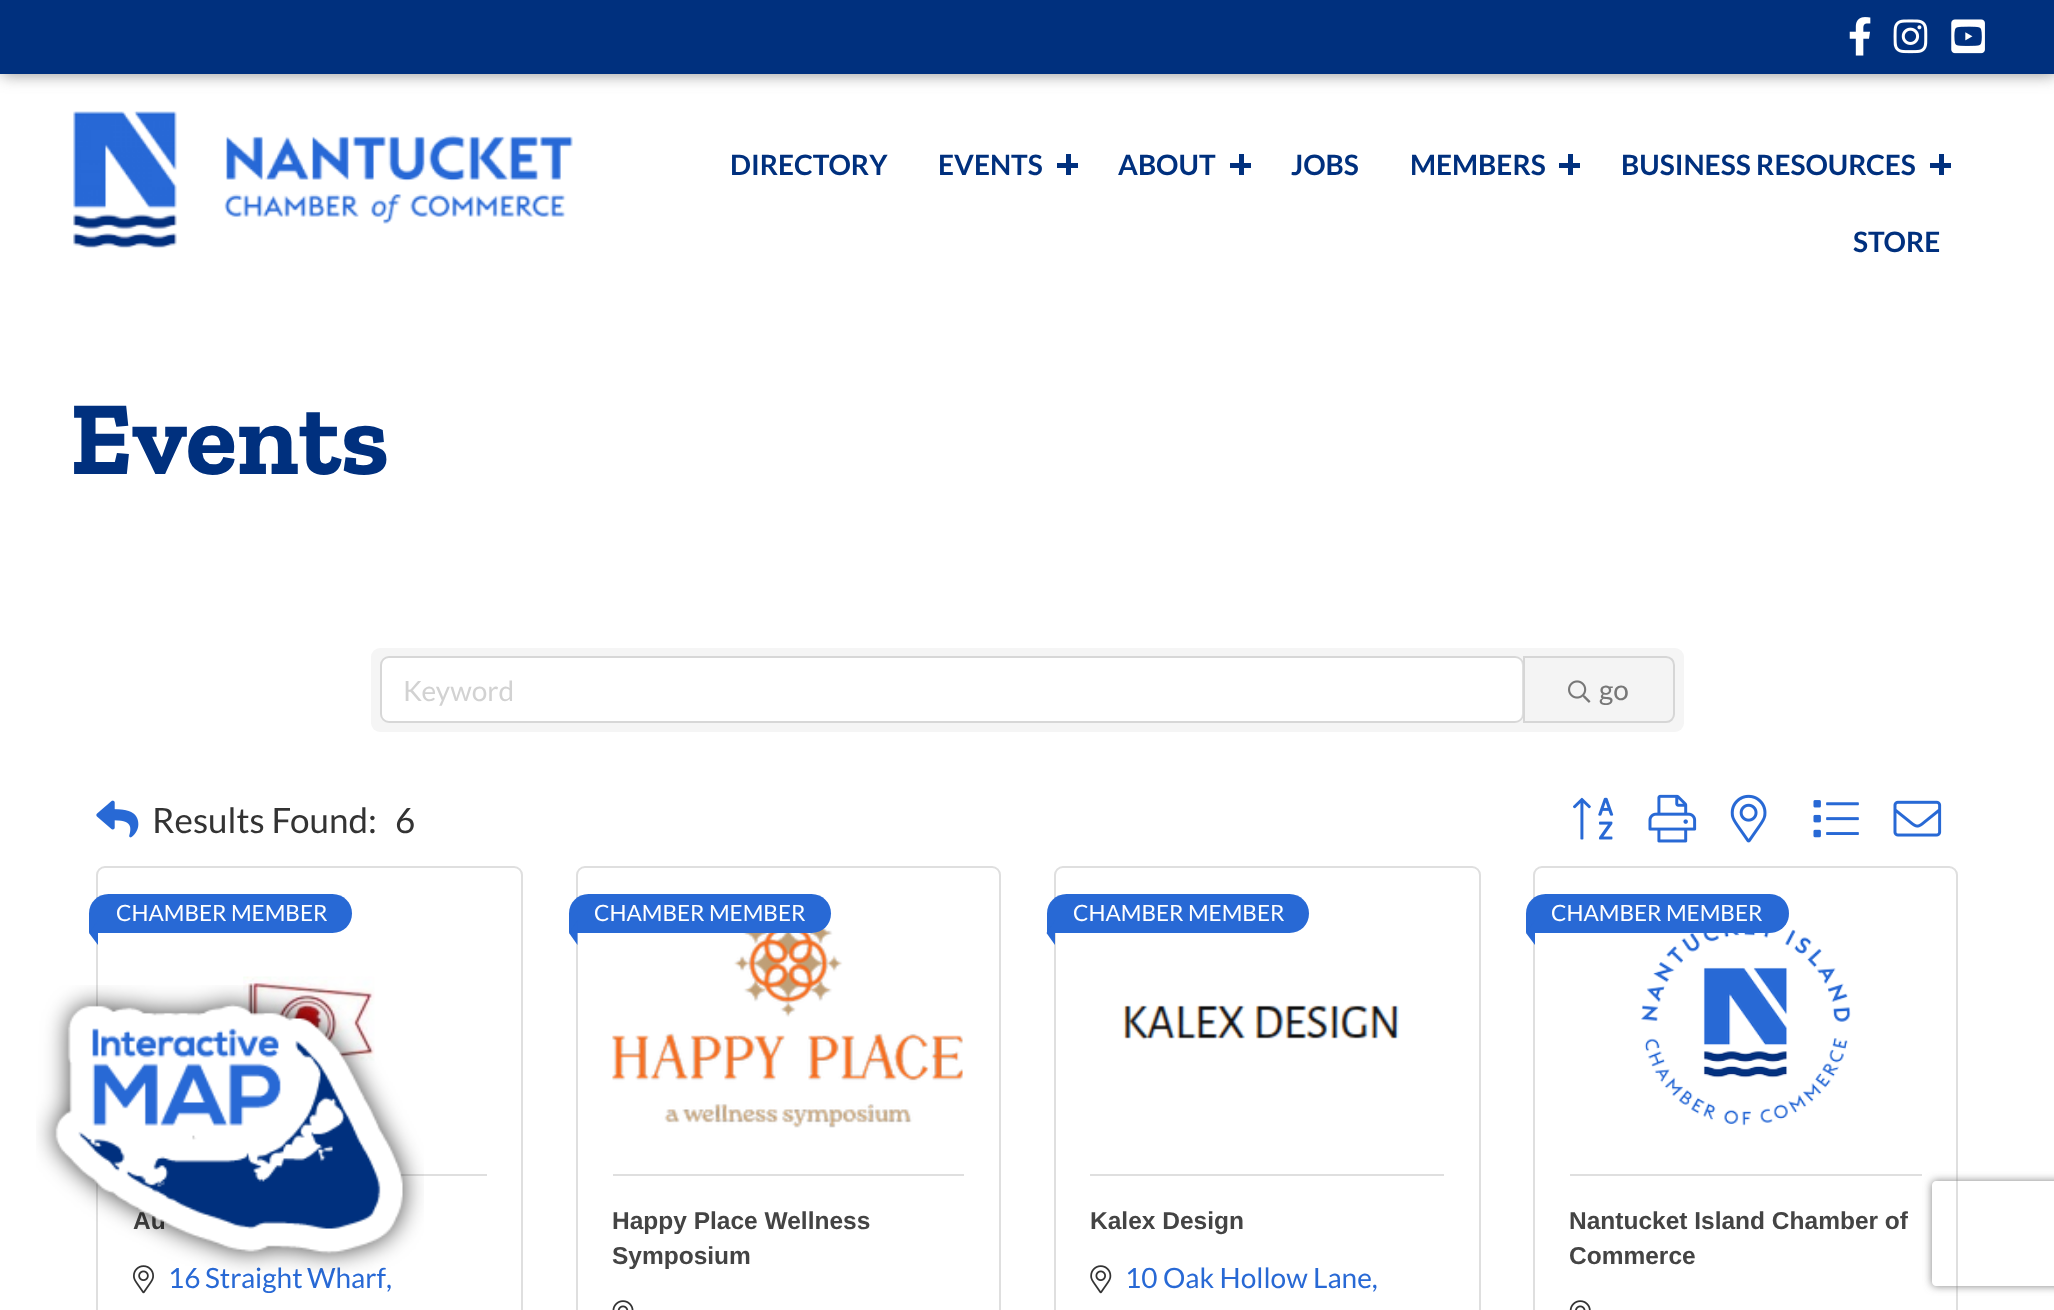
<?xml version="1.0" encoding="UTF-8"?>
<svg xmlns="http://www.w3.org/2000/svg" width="2054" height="1310">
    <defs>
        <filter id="blur1" x="-50%" y="-200%" width="200%" height="500%"><feGaussianBlur stdDeviation="8"/></filter>
        <clipPath id="clip1"><path d="M 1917 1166 H 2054 V 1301 H 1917 Z M 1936 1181 H 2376 C 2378 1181 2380 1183 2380 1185 V 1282 C 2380 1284 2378 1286 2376 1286 H 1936 C 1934 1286 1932 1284 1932 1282 V 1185 C 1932 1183 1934 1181 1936 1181 Z" clip-rule="evenodd"/></clipPath>
        <filter id="blur2" x="-50%" y="-200%" width="200%" height="500%"><feGaussianBlur stdDeviation="4.5"/></filter>
    </defs>
    <rect width="100%" height="100%" fill="#FFFFFF"/>
    <rect x="2" y="2" width="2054" height="73" fill="#999999" filter="url(#blur1)"/>
    <rect x="0" y="0" width="2054" height="74" fill="#00307E"/>
    <image x="1849" y="17" width="22" height="39" href="img_01.png"/>
    <image x="1893" y="19" width="35" height="35" href="img_02.png"/>
    <image x="1951" y="19" width="34" height="35" href="img_03.png"/>
    <image x="73" y="111" width="500" height="138" href="img_04.png"/>
    <text x="730" y="175" font-family="Lato" font-size="28" font-weight="700" fill="#00307E">DIRECTORY</text>
    <text x="938" y="175" font-family="Lato" font-size="28" font-weight="700" fill="#00307E">EVENTS</text>
    <rect x="1057" y="163" width="21" height="5" fill="#00307E"/>
    <rect x="1066" y="154" width="5" height="21" fill="#00307E"/>
    <text x="1118" y="175" font-family="Lato" font-size="28" font-weight="700" fill="#00307E">ABOUT</text>
    <rect x="1230" y="163" width="21" height="5" fill="#00307E"/>
    <rect x="1239" y="154" width="5" height="21" fill="#00307E"/>
    <text x="1291" y="175" font-family="Lato" font-size="28" font-weight="700" fill="#00307E">JOBS</text>
    <text x="1410" y="175" font-family="Lato" font-size="28" font-weight="700" fill="#00307E">MEMBERS</text>
    <rect x="1559" y="163" width="21" height="5" fill="#00307E"/>
    <rect x="1568" y="154" width="5" height="21" fill="#00307E"/>
    <text x="1621" y="175" font-family="Lato" font-size="28" font-weight="700" fill="#00307E">BUSINESS RESOURCES</text>
    <rect x="1930" y="163" width="21" height="5" fill="#00307E"/>
    <rect x="1939" y="154" width="5" height="21" fill="#00307E"/>
    <text x="1853" y="252" font-family="Lato" font-size="28" font-weight="700" fill="#00307E">STORE</text>
    <text x="70" y="474" font-family="Zilla Slab" font-size="105" font-weight="700" fill="#00307E">Events</text>
    <rect x="371" y="648" width="1313" height="84" rx="9" fill="#F5F5F5"/>
    <rect x="382" y="658" width="1141" height="63" rx="7" fill="#FFFFFF"/>
    <rect x="381" y="657" width="1142" height="65" rx="8" fill="none" stroke="#000000" stroke-opacity="0.12" stroke-width="2"/>
    <text x="403" y="701" font-family="Lato" font-size="28" fill="#D2D2D2">Keyword</text>
    <path d="M 1524 657 H 1666 C 1670.5 657 1674 660.5 1674 665 V 714 C 1674 718.5 1670.5 722 1666 722 H 1524 Z" fill="#F4F4F4" stroke="#D6D6D6" stroke-width="2"/>
    <image x="1568" y="680" width="23" height="23" href="img_05.png"/>
    <text x="1599" y="700" font-family="Lato" font-size="28" fill="#777777">go</text>
    <image x="96" y="800" width="43" height="38" href="img_06.png"/>
    <text x="152" y="833" font-family="Lato" font-size="35" fill="#333333">Results Found:</text>
    <text x="395" y="833" font-family="Lato" font-size="35" fill="#333333">6</text>
    <image x="1573" y="797" width="41" height="43" href="img_07.png"/>
    <image x="1648" y="794" width="49" height="49" href="img_08.png"/>
    <image x="1730" y="794" width="37" height="49" href="img_09.png"/>
    <image x="1813" y="800" width="46" height="38" href="img_10.png"/>
    <image x="1893" y="800" width="49" height="37" href="img_11.png"/>
    <rect x="97" y="867" width="425" height="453" rx="8" fill="none" stroke="#DFDFDF" stroke-width="2"/>
    <path d="M 108.5 894 H 332.5 C 343.5 894 352 902.5 352 913.5 C 352 924.5 343.5 933 332.5 933 H 90 C 89.5 933 89 932.5 89 932 V 913.5 C 89 902.5 97.5 894 108.5 894 Z" fill="#2869D5"/>
    <text x="116" y="921" font-family="Lato" font-size="22.5" fill="#FFFFFF">CHAMBER MEMBER</text>
    <path d="M 98 920.5 V 945 L 89 933 Z" fill="#2869D5"/>
    <image x="243" y="976" width="132" height="92" href="img_12.png"/>
    <rect x="398" y="1174" width="89" height="2" fill="#DFDFDF"/>
    <text x="133" y="1229" font-family="Liberation Sans" font-size="24.5" font-weight="700" fill="#444444">Au</text>
    <image x="133" y="1265" width="21" height="29" href="img_13.png"/>
    <text x="168" y="1288" word-spacing="-1" font-family="Lato" font-size="28" fill="#2869D5">16 Straight Wharf</text>
    <text x="386" y="1288" font-family="Lato" font-size="28" fill="#2869D5">,</text>
    <rect x="577" y="867" width="423" height="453" rx="8" fill="none" stroke="#DFDFDF" stroke-width="2"/>
    <image x="612" y="927" width="351" height="201" href="img_14.png"/>
    <path d="M 588.5 894 H 811.5 C 822.5 894 831 902.5 831 913.5 C 831 924.5 822.5 933 811.5 933 H 570 C 569.5 933 569 932.5 569 932 V 913.5 C 569 902.5 577.5 894 588.5 894 Z" fill="#2869D5"/>
    <text x="594" y="921" font-family="Lato" font-size="22.5" fill="#FFFFFF">CHAMBER MEMBER</text>
    <path d="M 577.5 920.5 V 945 L 569 933 Z" fill="#2869D5"/>
    <rect x="613" y="1174" width="351" height="2" fill="#DFDFDF"/>
    <text font-family="Liberation Sans" font-size="24.5" font-weight="700" fill="#444444">
        <tspan x="612" y="1229">Happy Place Wellness</tspan>
        <tspan x="612" y="1264">Symposium</tspan>
    </text>
    <image x="612" y="1300" width="22" height="10" href="img_15.png"/>
    <rect x="1055" y="867" width="425" height="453" rx="8" fill="none" stroke="#DFDFDF" stroke-width="2"/>
    <path d="M 1066.5 894 H 1289.5 C 1300.5 894 1309 902.5 1309 913.5 C 1309 924.5 1300.5 933 1289.5 933 H 1048 C 1047.5 933 1047 932.5 1047 932 V 913.5 C 1047 902.5 1055.5 894 1066.5 894 Z" fill="#2869D5"/>
    <text x="1073" y="921" font-family="Lato" font-size="22.5" fill="#FFFFFF">CHAMBER MEMBER</text>
    <path d="M 1055 920.5 V 945 L 1046.5 933 Z" fill="#2869D5"/>
    <image x="1123" y="1005" width="276" height="35" href="img_16.png"/>
    <rect x="1090" y="1174" width="354" height="2" fill="#DFDFDF"/>
    <text x="1090" y="1229" font-family="Liberation Sans" font-size="24.5" font-weight="700" fill="#444444">Kalex Design</text>
    <image x="1090" y="1265" width="22" height="29" href="img_17.png"/>
    <text x="1125" y="1288" font-family="Lato" font-size="28" fill="#2869D5">10 Oak Hollow Lane,</text>
    <rect x="1534" y="867" width="423" height="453" rx="8" fill="none" stroke="#DFDFDF" stroke-width="2"/>
    <image x="1641" y="929" width="210" height="197" href="img_18.png"/>
    <path d="M 1545.5 894 H 1769.5 C 1780.5 894 1789 902.5 1789 913.5 C 1789 924.5 1780.5 933 1769.5 933 H 1527 C 1526.5 933 1526 932.5 1526 932 V 913.5 C 1526 902.5 1534.5 894 1545.5 894 Z" fill="#2869D5"/>
    <text x="1551" y="921" font-family="Lato" font-size="22.5" fill="#FFFFFF">CHAMBER MEMBER</text>
    <path d="M 1535 920.5 V 945 L 1526 933 Z" fill="#2869D5"/>
    <rect x="1570" y="1174" width="352" height="2" fill="#DFDFDF"/>
    <text font-family="Liberation Sans" font-size="24.5" font-weight="700" fill="#444444">
        <tspan x="1569" y="1229">Nantucket Island Chamber of</tspan>
        <tspan x="1569" y="1264">Commerce</tspan>
    </text>
    <image x="1569" y="1300" width="22" height="10" href="img_19.png"/>
    <image x="36" y="985" width="388" height="288" href="img_20.png"/>
    <g clip-path="url(#clip1)">
        <rect x="1932" y="1181" width="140" height="105" rx="4" fill="#808080" filter="url(#blur2)"/>
    </g>
</svg>
